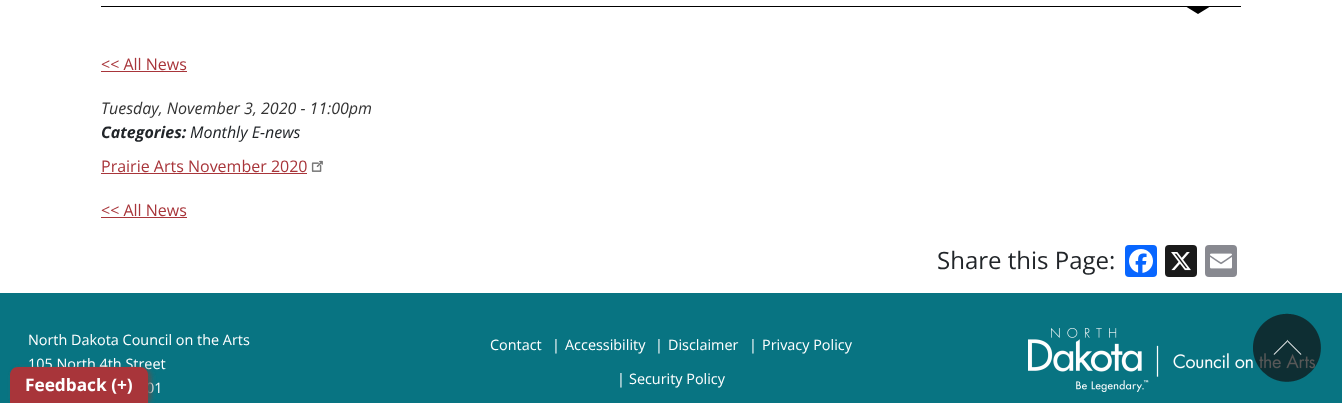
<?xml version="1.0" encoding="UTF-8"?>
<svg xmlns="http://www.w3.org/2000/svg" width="1342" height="403">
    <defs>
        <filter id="blur1" x="-50%" y="-200%" width="200%" height="500%"><feGaussianBlur stdDeviation="2.5"/></filter>
    </defs>
    <rect width="100%" height="100%" fill="#FFFFFF"/>
    <rect x="101" y="6" width="1140" height="1" fill="#000000"/>
    <path d="M 1185 6 H 1211 L 1198 14 Z" fill="#000000"/>
    <text x="101" y="70" font-family="Open Sans" font-size="16" fill="#A8353A">&lt;&lt; All News</text>
    <rect x="101" y="71" width="86" height="1" fill="#A8353A"/>
    <text x="101" y="114" font-family="Open Sans" font-size="16" font-style="italic" fill="#333333">Tuesday, November 3, 2020 - 11:00pm</text>
    <text x="101" y="138" font-family="Open Sans" font-size="16" font-weight="700" font-style="italic" fill="#212529">Categories:</text>
    <text x="190" y="138" font-family="Open Sans" font-size="16" font-style="italic" fill="#212529">Monthly E-news</text>
    <text x="101" y="172" font-family="Open Sans" font-size="16" fill="#A8353A">Prairie Arts November 2020</text>
    <rect x="101" y="173" width="206" height="1" fill="#A8353A"/>
    <image x="311" y="160" width="12" height="12" href="img_01.png"/>
    <text x="101" y="216" font-family="Open Sans" font-size="16" fill="#A8353A">&lt;&lt; All News</text>
    <rect x="101" y="217" width="86" height="1" fill="#A8353A"/>
    <text x="937" y="269" font-family="Open Sans" font-size="24" fill="#212529">Share this Page:</text>
    <rect x="1125" y="245" width="32" height="32" rx="4" fill="#0866FF"/>
    <image x="1129" y="249" width="24" height="24" href="img_02.png"/>
    <rect x="1165" y="245" width="32" height="32" rx="4" fill="#1A1A1A"/>
    <image x="1171" y="252" width="20" height="19" href="img_03.png"/>
    <rect x="1205" y="245" width="32" height="32" rx="4" fill="#888990"/>
    <image x="1210" y="253" width="22" height="16" href="img_04.png"/>
    <rect x="0" y="293" width="1342" height="110" fill="#087482"/>
    <text font-family="Open Sans" font-size="14.4" fill="#FFFFFF">
        <tspan x="28" y="345">North Dakota Council on the Arts</tspan>
        <tspan x="28" y="369">105 North 4th Street</tspan>
    </text>
    <text x="146" y="393" font-family="Open Sans" font-size="14.4" fill="#FFFFFF">01</text>
    <text x="490" y="350" font-family="Open Sans" font-size="14.4" fill="#FFFFFF">Contact</text>
    <text x="552" y="350" font-family="Open Sans" font-size="14.4" fill="#FFFFFF">|</text>
    <text x="565" y="350" font-family="Open Sans" font-size="14.4" fill="#FFFFFF">Accessibility</text>
    <text x="655" y="350" font-family="Open Sans" font-size="14.4" fill="#FFFFFF">|</text>
    <text x="668" y="350" font-family="Open Sans" font-size="14.4" fill="#FFFFFF">Disclaimer</text>
    <text x="749" y="350" font-family="Open Sans" font-size="14.4" fill="#FFFFFF">|</text>
    <text x="762" y="350" font-family="Open Sans" font-size="14.4" fill="#FFFFFF">Privacy Policy</text>
    <text x="617" y="384" font-family="Open Sans" font-size="14.4" fill="#FFFFFF">|</text>
    <text x="629" y="384" font-family="Open Sans" font-size="14.4" fill="#FFFFFF">Security Policy</text>
    <rect x="13" y="369" width="138" height="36" rx="8" fill="#555555" filter="url(#blur1)"/>
    <path d="M 18 367 H 140 C 144.5 367 148 370.5 148 375 V 403 H 10 V 375 C 10 370.5 13.5 367 18 367 Z" fill="#A8353A"/>
    <text x="25" y="391" font-family="Open Sans" font-size="17.25" font-weight="700" fill="#FFFFFF">Feedback (+)</text>
    <image x="1028" y="328" width="287" height="64" href="img_05.png"/>
    <image x="1253" y="313" width="68" height="69" href="img_06.png"/>
</svg>
